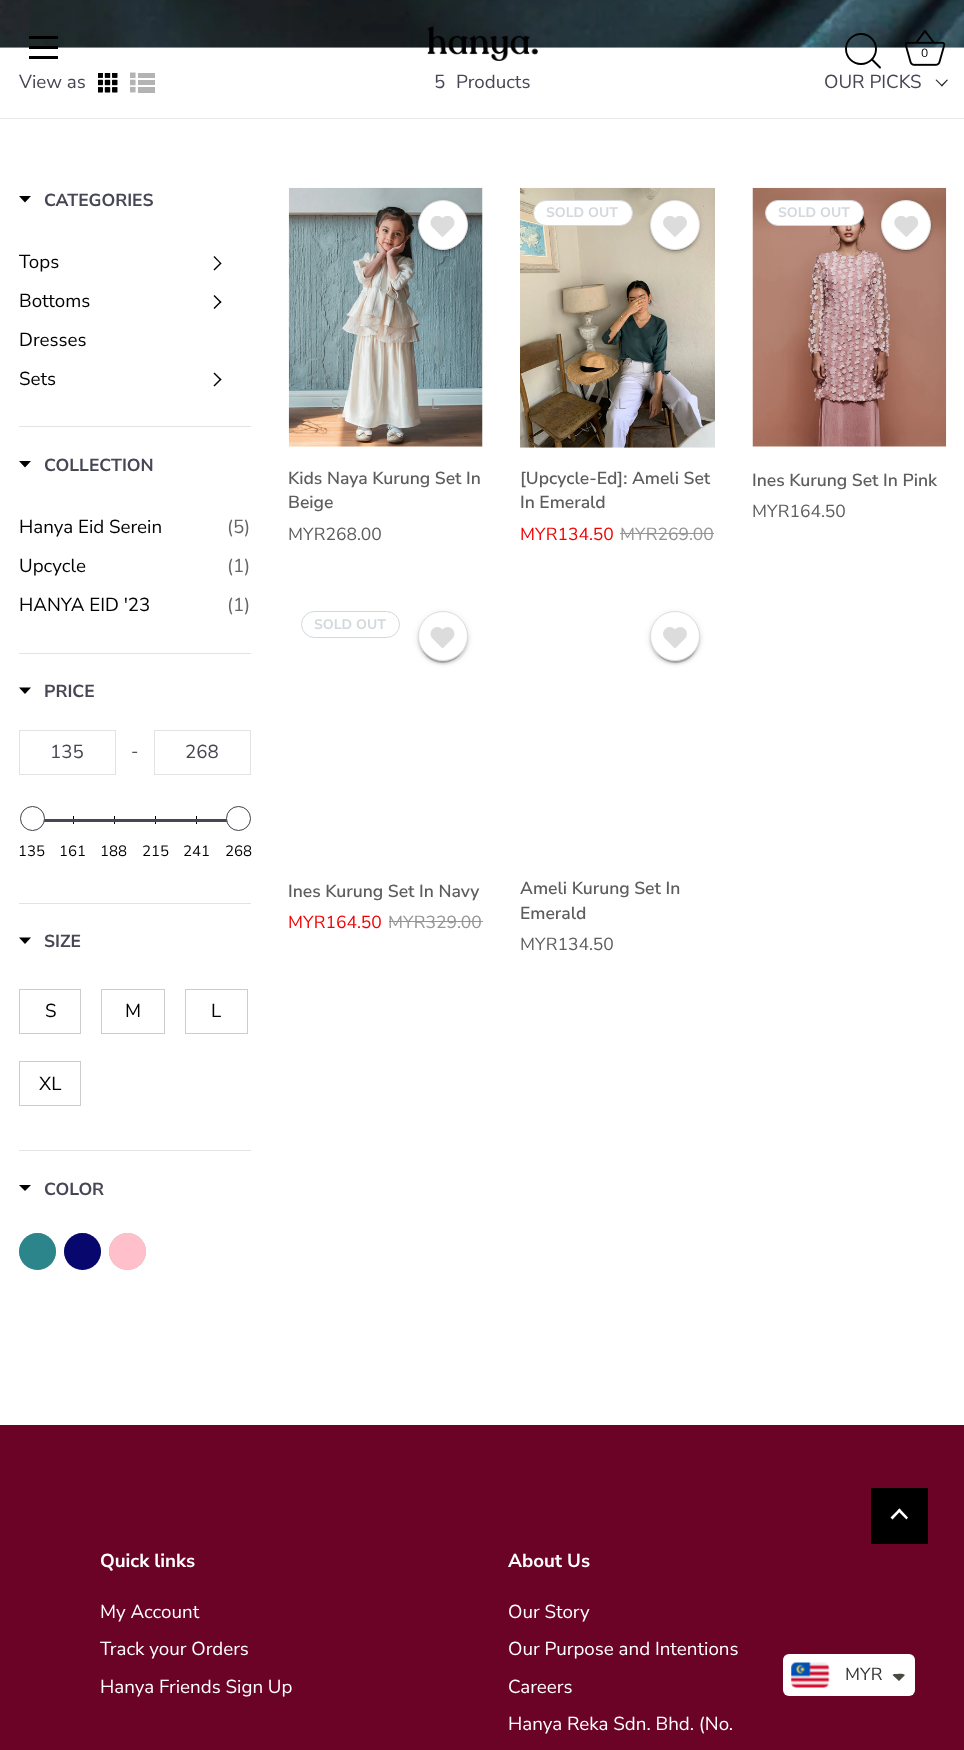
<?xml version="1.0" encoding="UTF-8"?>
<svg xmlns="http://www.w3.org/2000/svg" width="964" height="1750">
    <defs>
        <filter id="blur1" x="-50%" y="-200%" width="200%" height="500%"><feGaussianBlur stdDeviation="0.5"/></filter>
        <filter id="blur2" x="-50%" y="-200%" width="200%" height="500%"><feGaussianBlur stdDeviation="3"/></filter>
        <filter id="blur3" x="-50%" y="-200%" width="200%" height="500%"><feGaussianBlur stdDeviation="1"/></filter>
    </defs>
    <rect width="100%" height="100%" fill="#FFFFFF"/>
    <image x="0" y="0" width="964" height="48" href="img_03.png"/>
    <rect x="29" y="36" width="29" height="3" fill="#000000"/>
    <rect x="29" y="46" width="29" height="3" fill="#000000"/>
    <rect x="29" y="56" width="29" height="3" fill="#000000"/>
    <image x="427" y="26" width="111" height="35" href="img_01.png"/>
    <circle cx="861" cy="49" r="15" fill="none" stroke="#000000" stroke-width="1.9"/>
    <path d="M 880 67.5 L 872 59.5" fill="none" stroke="#000000" stroke-width="1.9" stroke-linecap="round" stroke-linejoin="round"/>
    <image x="904" y="30" width="42" height="36" href="img_02.png"/>
    <text x="921" y="57" font-family="Nunito Sans" font-size="12" fill="#000000">0</text>
    <rect x="0" y="118" width="964" height="1" fill="#E8E9EB"/>
    <text x="19" y="88" font-family="Nunito Sans" font-size="18.75" fill="#464654">View as</text>
    <image x="98" y="73" width="20" height="20" href="img_04.png"/>
    <image x="130" y="72" width="25" height="21" href="img_05.png"/>
    <text x="434" y="88" font-family="Nunito Sans" font-size="18.75" fill="#464654">5</text>
    <text x="456" y="88" font-family="Nunito Sans" font-size="18.75" fill="#464654">Products</text>
    <text x="824" y="88" font-family="Nunito Sans" font-size="18.75" fill="#464654">OUR PICKS</text>
    <path d="M 947 79.5 L 948 80 L 942 86.5 L 941 85.5 Z" fill="#222222"/>
    <path d="M 936.5 79.5 L 942.5 85.5 L 942 86.5 L 935.5 80 Z" fill="#222222"/>
    <path d="M 19 196 H 31 L 25 202.5 Z" fill="#000000"/>
    <text x="44" y="206" font-family="Nunito Sans" font-size="17.5" font-weight="700" fill="#464654">CATEGORIES</text>
    <text x="19" y="268" font-family="Nunito Sans" font-size="18.75" fill="#000000">Tops</text>
    <path d="M 213.5 257 L 214.5 256 L 221.5 263.5 L 220.5 264 Z" fill="#000000"/>
    <path d="M 213.5 269.5 L 220.5 262.5 L 221.5 263.5 L 214.5 270.5 Z" fill="#000000"/>
    <text x="19" y="307" font-family="Nunito Sans" font-size="18.75" fill="#000000">Bottoms</text>
    <path d="M 213.5 296 L 214.5 295 L 221.5 302 L 220.5 303 Z" fill="#000000"/>
    <path d="M 213.5 308 L 220.5 301 L 221.5 302 L 214.5 309 Z" fill="#000000"/>
    <text x="19" y="346" font-family="Nunito Sans" font-size="18.75" fill="#000000">Dresses</text>
    <text x="19" y="385" font-family="Nunito Sans" font-size="18.75" fill="#000000">Sets</text>
    <path d="M 213.5 373.5 L 214.5 372.5 L 221.5 379.5 L 220.5 380.5 Z" fill="#000000"/>
    <path d="M 213.5 385.5 L 220.5 378.5 L 221.5 379.5 L 214.5 386.5 Z" fill="#000000"/>
    <rect x="19" y="426" width="232" height="1" fill="#E3E3E3"/>
    <path d="M 19 461 H 31 L 25 467.5 Z" fill="#000000"/>
    <text x="44" y="471" font-family="Nunito Sans" font-size="17.5" font-weight="700" fill="#464654">COLLECTION</text>
    <text x="19" y="533" font-family="Nunito Sans" font-size="18.75" fill="#000000">Hanya Eid Serein</text>
    <text x="227" y="533" font-family="Nunito Sans" font-size="18.75" fill="#666666">(5)</text>
    <text x="19" y="572" font-family="Nunito Sans" font-size="18.75" fill="#000000">Upcycle</text>
    <text x="227" y="572" font-family="Nunito Sans" font-size="18.75" fill="#666666">(1)</text>
    <text x="19" y="611" font-family="Nunito Sans" font-size="18.75" fill="#000000">HANYA EID '23</text>
    <text x="227" y="611" font-family="Nunito Sans" font-size="18.75" fill="#666666">(1)</text>
    <rect x="19" y="653" width="232" height="1" fill="#E3E3E3"/>
    <path d="M 19 687.5 H 31 L 25 694 Z" fill="#000000"/>
    <text x="44" y="697" font-family="Nunito Sans" font-size="17.5" font-weight="700" fill="#464654">PRICE</text>
    <rect x="19.5" y="730.5" width="96" height="44" fill="none" stroke="#E3E3E3"/>
    <text x="50" y="758" font-family="Nunito Sans" font-size="18.75" fill="#464654">135</text>
    <text x="131" y="757" font-family="Nunito Sans" font-size="17.5" fill="#464654">-</text>
    <rect x="154.5" y="730.5" width="96" height="44" fill="none" stroke="#E3E3E3"/>
    <text x="185" y="758" font-family="Nunito Sans" font-size="18.75" fill="#464654">268</text>
    <rect x="73" y="816" width="1" height="8" fill="#000000"/>
    <rect x="114" y="816" width="1" height="8" fill="#000000"/>
    <rect x="155" y="816" width="1" height="8" fill="#000000"/>
    <rect x="196" y="816" width="1" height="8" fill="#000000"/>
    <rect x="44" y="819" width="183" height="3" fill="#464654"/>
    <circle cx="32.5" cy="818.5" r="12" fill="#FFFFFF" stroke="#3D4246"/>
    <circle cx="238.5" cy="818.5" r="12" fill="#FFFFFF" stroke="#3D4246"/>
    <text x="18" y="856" font-family="Nunito Sans" font-size="15" fill="#000000">135</text>
    <text x="59" y="856" font-family="Nunito Sans" font-size="15" fill="#000000">161</text>
    <text x="100" y="856" font-family="Nunito Sans" font-size="15" fill="#000000">188</text>
    <text x="142" y="856" font-family="Nunito Sans" font-size="15" fill="#000000">215</text>
    <text x="183" y="856" font-family="Nunito Sans" font-size="15" fill="#000000">241</text>
    <text x="225" y="856" font-family="Nunito Sans" font-size="15" fill="#000000">268</text>
    <rect x="19" y="903" width="232" height="1" fill="#E3E3E3"/>
    <path d="M 19 937.5 H 31 L 25 944 Z" fill="#000000"/>
    <text x="44" y="947" font-family="Nunito Sans" font-size="17.5" font-weight="700" fill="#464654">SIZE</text>
    <rect x="19.5" y="989.5" width="61" height="44" fill="none" stroke="#CCCCCC"/>
    <text x="45" y="1017" font-family="Nunito Sans" font-size="18.75" fill="#000000">S</text>
    <rect x="101.5" y="989.5" width="63" height="44" fill="none" stroke="#CCCCCC"/>
    <text x="125" y="1017" font-family="Nunito Sans" font-size="18.75" fill="#000000">M</text>
    <rect x="185.5" y="989.5" width="62" height="44" fill="none" stroke="#CCCCCC"/>
    <text x="211" y="1017" font-family="Nunito Sans" font-size="18.75" fill="#000000">L</text>
    <rect x="19.5" y="1061.5" width="61" height="44" fill="none" stroke="#CCCCCC"/>
    <text x="39" y="1090" font-family="Nunito Sans" font-size="18.75" fill="#000000">XL</text>
    <rect x="19" y="1150" width="232" height="1" fill="#E3E3E3"/>
    <path d="M 19 1185 H 31 L 25 1191 Z" fill="#000000"/>
    <text x="44" y="1195" font-family="Nunito Sans" font-size="17.5" font-weight="700" fill="#464654">COLOR</text>
    <rect x="19" y="1233" width="37" height="37" rx="18.5" fill="#000000" fill-opacity="0.3" filter="url(#blur1)"/>
    <circle cx="37.5" cy="1251.5" r="18.5" fill="#2B858B"/>
    <rect x="64" y="1233" width="37" height="37" rx="18.5" fill="#000000" fill-opacity="0.3" filter="url(#blur1)"/>
    <circle cx="82.5" cy="1251.5" r="18.5" fill="#07076D"/>
    <rect x="109" y="1233" width="37" height="37" rx="18.5" fill="#000000" fill-opacity="0.3" filter="url(#blur1)"/>
    <circle cx="127.5" cy="1251.5" r="18.5" fill="#FFC0CB"/>
    <image x="288" y="187" width="195" height="260" href="img_07.png"/>
    <rect x="420" y="206" width="45" height="45" rx="22.5" fill="#000000" fill-opacity="0.2" filter="url(#blur1)"/>
    <rect x="418" y="201" width="50" height="50" rx="25" fill="#000000" fill-opacity="0.12" filter="url(#blur2)"/>
    <rect x="418" y="203" width="50" height="50" rx="25" fill="#000000" fill-opacity="0.14" filter="url(#blur3)"/>
    <circle cx="443" cy="225" r="24.5" fill="#FFFFFF" stroke="#DDDDDD"/>
    <image x="430" y="215" width="25" height="22" href="img_06.png"/>
    <text x="331" y="409" font-family="Nunito Sans" font-size="15" fill="#9EA4A0">S</text>
    <text x="431" y="409" font-family="Nunito Sans" font-size="15" fill="#969595">L</text>
    <text font-family="Nunito Sans" font-size="17.5" font-weight="600" fill="#5E5C5C">
        <tspan x="288" y="484">Kids Naya Kurung Set In</tspan>
        <tspan x="288" y="508">Beige</tspan>
    </text>
    <text x="288" y="540" font-family="Nunito Sans" font-size="17.5" fill="#5E5C5C">MYR268.00</text>
    <image x="520" y="187" width="195" height="261" href="img_08.png"/>
    <rect x="533.5" y="200.5" width="99" height="25" rx="12.5" fill="#FFFFFF" stroke="#D2D8DB"/>
    <text x="546" y="217" font-family="'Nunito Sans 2'" font-size="13.75" font-weight="700" fill="#D2D8DB">SOLD OUT</text>
    <text x="611" y="371" font-family="Nunito Sans" font-size="15" fill="#735B3E">M</text>
    <text x="663" y="371" font-family="Nunito Sans" font-size="15" fill="#868C8A">L</text>
    <text x="608" y="409" font-family="Nunito Sans" font-size="15" fill="#9E9DA4">XL</text>
    <rect x="653" y="206" width="45" height="45" rx="22.5" fill="#000000" fill-opacity="0.2" filter="url(#blur1)"/>
    <rect x="650" y="201" width="50" height="50" rx="25" fill="#000000" fill-opacity="0.12" filter="url(#blur2)"/>
    <rect x="650" y="203" width="50" height="50" rx="25" fill="#000000" fill-opacity="0.14" filter="url(#blur3)"/>
    <circle cx="675" cy="225" r="24.5" fill="#FFFFFF" stroke="#DDDDDD"/>
    <image x="663" y="215" width="24" height="22" href="img_09.png"/>
    <text font-family="Nunito Sans" font-size="17.5" font-weight="600" fill="#5E5C5C">
        <tspan x="520" y="484">[Upcycle-Ed]: Ameli Set</tspan>
        <tspan x="520" y="508">In Emerald</tspan>
    </text>
    <text x="520" y="540" font-family="Nunito Sans" font-size="17.5" fill="#F30000">MYR134.50</text>
    <text x="620" y="540" font-family="Nunito Sans" font-size="17.5" fill="#969595">MYR269.00</text>
    <rect x="620" y="533" width="94" height="1" fill="#969595"/>
    <image x="752" y="187" width="195" height="260" href="img_10.png"/>
    <rect x="765.5" y="200.5" width="98" height="25" rx="12.5" fill="#FFFFFF" stroke="#D2D8DB"/>
    <text x="778" y="217" font-family="'Nunito Sans 2'" font-size="13.75" font-weight="700" fill="#D2D8DB">SOLD OUT</text>
    <rect x="884" y="206" width="45" height="45" rx="22.5" fill="#000000" fill-opacity="0.2" filter="url(#blur1)"/>
    <rect x="881" y="201" width="50" height="50" rx="25" fill="#000000" fill-opacity="0.12" filter="url(#blur2)"/>
    <rect x="881" y="203" width="50" height="50" rx="25" fill="#000000" fill-opacity="0.14" filter="url(#blur3)"/>
    <circle cx="906" cy="225" r="24.5" fill="#FFFFFF" stroke="#DDDDDD"/>
    <image x="894" y="215" width="25" height="22" href="img_11.png"/>
    <text x="752" y="486" font-family="Nunito Sans" font-size="17.5" font-weight="600" fill="#5E5C5C">Ines Kurung Set In Pink</text>
    <text x="752" y="517" font-family="Nunito Sans" font-size="17.5" fill="#5E5C5C">MYR164.50</text>
    <rect x="301.5" y="611.5" width="98" height="26" rx="13" fill="none" stroke="#D2D8DB"/>
    <text x="314" y="629" font-family="'Nunito Sans 2'" font-size="13.75" font-weight="700" fill="#D2D8DB">SOLD OUT</text>
    <rect x="420" y="618" width="45" height="45" rx="22.5" fill="#000000" fill-opacity="0.2" filter="url(#blur1)"/>
    <rect x="418" y="613" width="50" height="50" rx="25" fill="#000000" fill-opacity="0.12" filter="url(#blur2)"/>
    <rect x="418" y="614" width="50" height="50" rx="25" fill="#000000" fill-opacity="0.14" filter="url(#blur3)"/>
    <circle cx="443" cy="636" r="24.5" fill="#FFFFFF" stroke="#DDDDDD"/>
    <image x="430" y="627" width="25" height="21" href="img_12.png"/>
    <text x="288" y="897" font-family="Nunito Sans" font-size="17.5" font-weight="600" fill="#5E5C5C">Ines Kurung Set In Navy</text>
    <text x="288" y="928" font-family="Nunito Sans" font-size="17.5" fill="#F30000">MYR164.50</text>
    <text x="388" y="928" font-family="Nunito Sans" font-size="17.5" fill="#969595">MYR329.00</text>
    <rect x="389" y="921" width="94" height="1" fill="#969595"/>
    <rect x="653" y="618" width="45" height="45" rx="22.5" fill="#000000" fill-opacity="0.2" filter="url(#blur1)"/>
    <rect x="650" y="613" width="50" height="50" rx="25" fill="#000000" fill-opacity="0.12" filter="url(#blur2)"/>
    <rect x="650" y="614" width="50" height="50" rx="25" fill="#000000" fill-opacity="0.14" filter="url(#blur3)"/>
    <circle cx="675" cy="636" r="24.5" fill="#FFFFFF" stroke="#DDDDDD"/>
    <image x="663" y="627" width="24" height="21" href="img_13.png"/>
    <text font-family="Nunito Sans" font-size="17.5" font-weight="600" fill="#5E5C5C">
        <tspan x="520" y="894">Ameli Kurung Set In</tspan>
        <tspan x="520" y="919">Emerald</tspan>
    </text>
    <text x="520" y="950" font-family="Nunito Sans" font-size="17.5" fill="#5E5C5C">MYR134.50</text>
    <rect x="0" y="1425" width="964" height="325" fill="#6B0327"/>
    <rect x="871" y="1488" width="57" height="56" fill="#000000"/>
    <path d="M 892.5 1519.5 L 890.5 1517.5 L 899.5 1508.5 L 901 1510.5 Z" fill="#FFFFFF"/>
    <path d="M 906.5 1519.5 L 897.5 1510.5 L 899.5 1508.5 L 908 1517.5 Z" fill="#FFFFFF"/>
    <text x="100" y="1567" font-family="Nunito Sans" font-size="18.75" font-weight="700" fill="#FFFFFF">Quick links</text>
    <text font-family="Nunito Sans" font-size="18.75" fill="#FFFFFF">
        <tspan x="100" y="1618">My Account</tspan>
        <tspan x="100" y="1655">Track your Orders</tspan>
    </text>
    <text x="100" y="1693" font-family="Nunito Sans" font-size="18.75" fill="#FFFFFF">Hanya Friends Sign Up</text>
    <text x="508" y="1567" font-family="Nunito Sans" font-size="18.75" font-weight="700" fill="#FFFFFF">About Us</text>
    <text font-family="Nunito Sans" font-size="18.75" fill="#FFFFFF">
        <tspan x="508" y="1618">Our Story</tspan>
        <tspan x="508" y="1655">Our Purpose and Intentions</tspan>
    </text>
    <text font-family="Nunito Sans" font-size="18.75" fill="#FFFFFF">
        <tspan x="508" y="1693">Careers</tspan>
        <tspan x="508" y="1730">Hanya Reka Sdn. Bhd. (No.</tspan>
    </text>
    <rect x="783" y="1654" width="132" height="42" rx="6" fill="#FFFFFF"/>
    <image x="791" y="1662" width="39" height="26" href="img_14.png"/>
    <text x="845" y="1680" font-family="Nunito Sans" font-size="17.5" fill="#333333">MYR</text>
    <path d="M 895 1674 C 897.5 1674 903 1673 905 1675 L 899 1681 L 892.5 1675 C 893 1674.5 894 1674 895 1674 Z" fill="#474942"/>
</svg>
